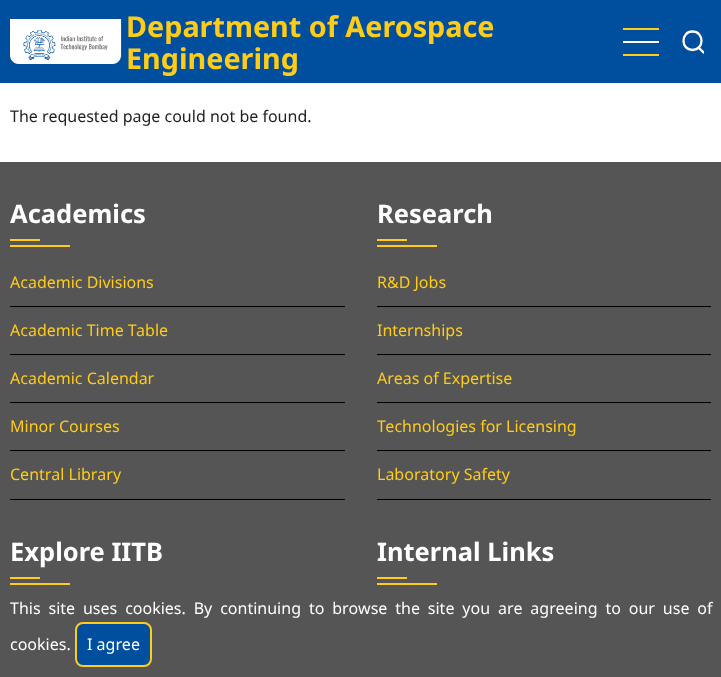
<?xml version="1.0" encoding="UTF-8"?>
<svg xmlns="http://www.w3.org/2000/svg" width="721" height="677">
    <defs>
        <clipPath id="clip1"><rect x="682" y="30" width="22" height="24"/></clipPath>
    </defs>
    <rect width="100%" height="100%" fill="#FFFFFF"/>
    <rect x="0" y="0" width="721" height="83" fill="#004F9F"/>
    <image x="10" y="19" width="112" height="45" href="img_01.png"/>
    <text font-family="Noto Sans" font-size="28.75" font-weight="700" fill="#FFCC18">
        <tspan x="126" y="37">Department of Aerospace</tspan>
        <tspan x="126" y="69">Engineering</tspan>
    </text>
    <rect x="623" y="28" width="36" height="2" fill="#FFCC18"/>
    <rect x="623" y="41" width="36" height="2" fill="#FFFFFF"/>
    <rect x="623" y="54" width="36" height="2" fill="#FFCC18"/>
    <path d="M 692.5 50 C 704.5 50 704.5 31.5 692.5 31.5 C 680.5 31.5 680.5 50 692.5 50 Z" fill="none" stroke="#FFFFFF" stroke-width="2.3" stroke-linecap="round" stroke-linejoin="round"/>
    <g clip-path="url(#clip1)">
        <path d="M 703.5 52.5 L 698.5 47.5" fill="none" stroke="#FFFFFF" stroke-width="2.3" stroke-linecap="round" stroke-linejoin="round"/>
    </g>
    <text x="10" y="122" font-family="Noto Sans" font-size="16" fill="#222222">The requested page could not be found.</text>
    <rect x="0" y="162" width="721" height="515" fill="#555555"/>
    <text x="10" y="223" font-family="Noto Sans" font-size="25.5" font-weight="700" fill="#FFFFFF">Academics</text>
    <rect x="10" y="239" width="30" height="2" fill="#FFCC18"/>
    <rect x="10" y="245" width="60" height="2" fill="#FFCC18"/>
    <rect x="10" y="306" width="335" height="1" fill="#000000"/>
    <text x="10" y="288" font-family="Noto Sans" font-size="16" fill="#FFCC18">Academic Divisions</text>
    <rect x="10" y="354" width="335" height="1" fill="#000000"/>
    <text x="10" y="336" font-family="Noto Sans" font-size="16" fill="#FFCC18">Academic Time Table</text>
    <rect x="10" y="402" width="335" height="1" fill="#000000"/>
    <text x="10" y="384" font-family="Noto Sans" font-size="16" fill="#FFCC18">Academic Calendar</text>
    <rect x="10" y="450" width="335" height="1" fill="#000000"/>
    <text x="10" y="432" font-family="Noto Sans" font-size="16" fill="#FFCC18">Minor Courses</text>
    <rect x="10" y="499" width="335" height="1" fill="#000000"/>
    <text x="10" y="480" font-family="Noto Sans" font-size="16" fill="#FFCC18">Central Library</text>
    <text x="377" y="223" font-family="Noto Sans" font-size="25.5" font-weight="700" fill="#FFFFFF">Research</text>
    <rect x="377" y="239" width="30" height="2" fill="#FFCC18"/>
    <rect x="377" y="245" width="60" height="2" fill="#FFCC18"/>
    <rect x="377" y="306" width="334" height="1" fill="#000000"/>
    <text x="377" y="288" font-family="Noto Sans" font-size="16" fill="#FFCC18">R&amp;D Jobs</text>
    <rect x="377" y="354" width="334" height="1" fill="#000000"/>
    <text x="377" y="336" font-family="Noto Sans" font-size="16" fill="#FFCC18">Internships</text>
    <rect x="377" y="402" width="334" height="1" fill="#000000"/>
    <text x="377" y="384" font-family="Noto Sans" font-size="16" fill="#FFCC18">Areas of Expertise</text>
    <rect x="377" y="450" width="334" height="1" fill="#000000"/>
    <text x="377" y="432" font-family="Noto Sans" font-size="16" fill="#FFCC18">Technologies for Licensing</text>
    <rect x="377" y="499" width="334" height="1" fill="#000000"/>
    <text x="377" y="480" font-family="Noto Sans" font-size="16" fill="#FFCC18">Laboratory Safety</text>
    <text x="10" y="561" font-family="Noto Sans" font-size="25.5" font-weight="700" fill="#FFFFFF">Explore IITB</text>
    <rect x="10" y="577" width="30" height="2" fill="#FFCC18"/>
    <rect x="10" y="583" width="60" height="2" fill="#FFCC18"/>
    <text x="377" y="561" font-family="Noto Sans" font-size="25.5" font-weight="700" fill="#FFFFFF">Internal Links</text>
    <rect x="377" y="577" width="30" height="2" fill="#FFCC18"/>
    <rect x="377" y="583" width="60" height="2" fill="#FFCC18"/>
    <text x="10" y="614" word-spacing="3.75" font-family="Noto Sans" font-size="16" fill="#FFFFFF">This site uses cookies. By continuing to browse the site you are agreeing to our use of</text>
    <text x="10" y="650" font-family="Noto Sans" font-size="16" fill="#FFFFFF">cookies.</text>
    <rect x="76" y="623" width="75" height="43" rx="7" fill="#004F9F" stroke="#FFCC18" stroke-width="2"/>
    <text x="87" y="650" font-family="Noto Sans" font-size="16" fill="#FFFFFF">I agree</text>
</svg>
